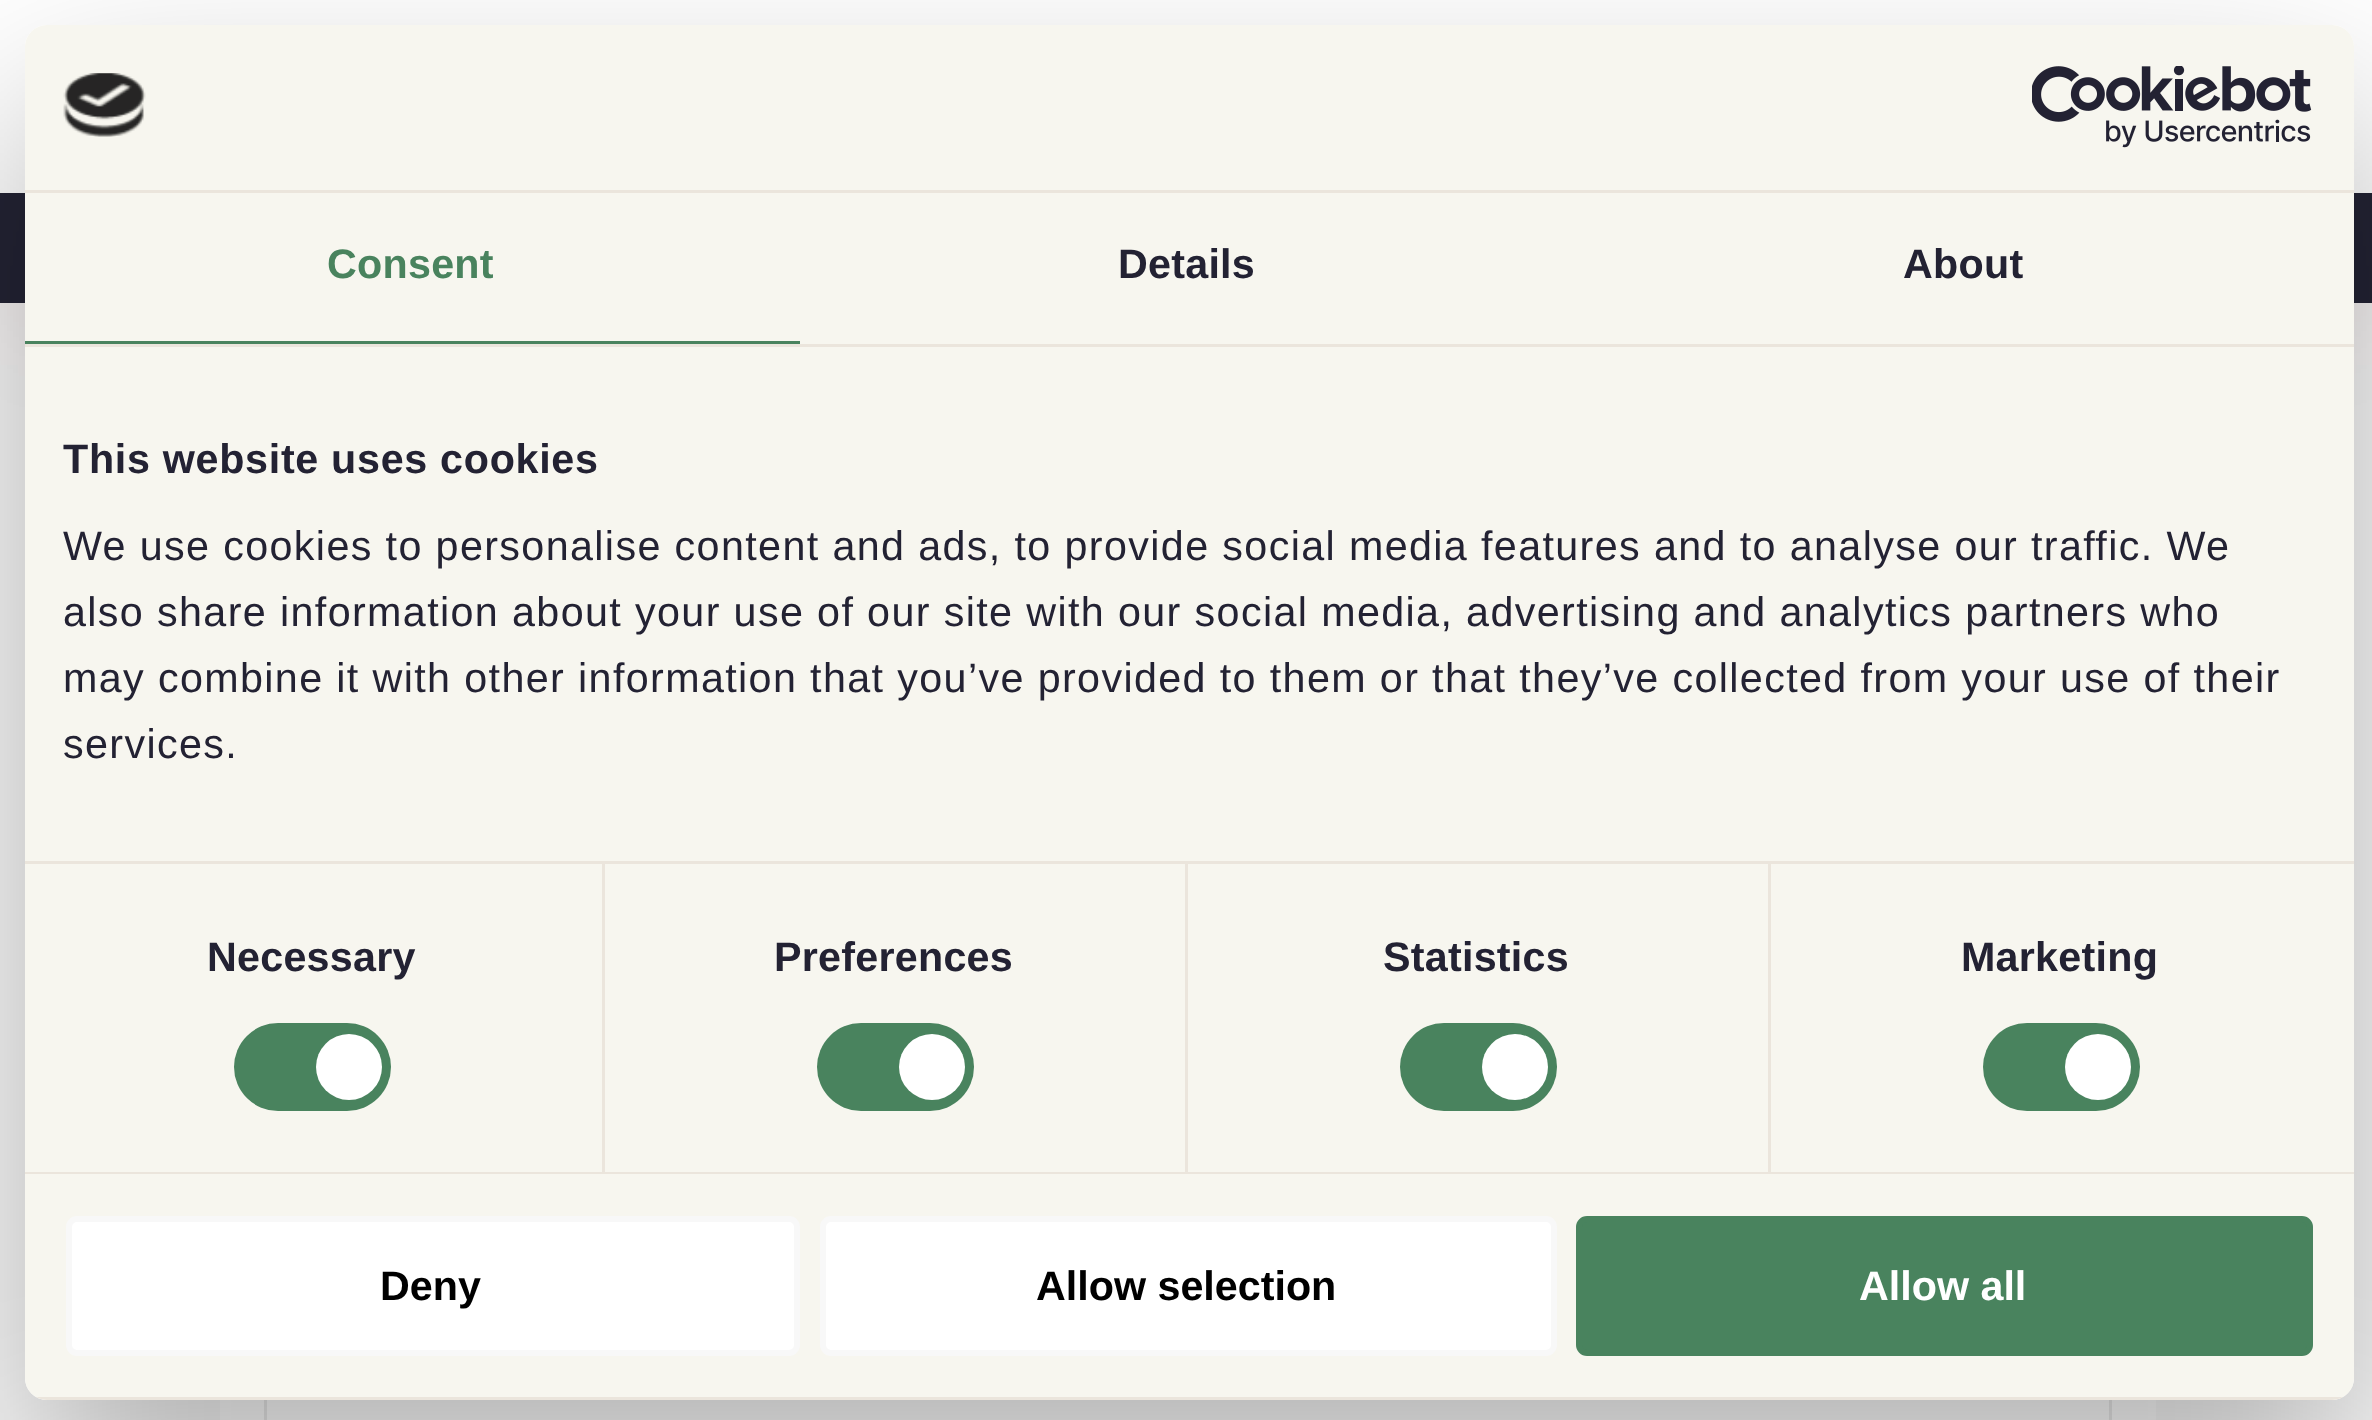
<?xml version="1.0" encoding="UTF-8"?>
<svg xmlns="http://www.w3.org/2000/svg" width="2372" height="1420">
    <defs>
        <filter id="blur1" x="-50%" y="-200%" width="200%" height="500%"><feGaussianBlur stdDeviation="60.5"/></filter>
        <clipPath id="clip1"><path d="M 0 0 H 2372 V 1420 H 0 Z M 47 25 H 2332 C 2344 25 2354 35 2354 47 V 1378 C 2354 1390 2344 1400 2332 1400 H 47 C 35 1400 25 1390 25 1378 V 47 C 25 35 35 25 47 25 Z" clip-rule="evenodd"/></clipPath>
        <filter id="blur2" x="-50%" y="-200%" width="200%" height="500%"><feGaussianBlur stdDeviation="93.5"/></filter>
        <clipPath id="clip2"><rect x="25" y="25" width="2329" height="1375" rx="22"/></clipPath>
    </defs>
    <rect width="100%" height="100%" fill="#FAFAFA"/>
    <rect x="28" y="61" width="2318" height="247" fill="#8F330B" fill-opacity="0.1" filter="url(#blur1)"/>
    <rect x="0" y="0" width="2372" height="193" fill="#FFFFFF"/>
    <rect x="0" y="193" width="2372" height="110" fill="#232334"/>
    <rect x="220" y="1400" width="1936" height="20" fill="#FFFFFF"/>
    <rect x="265.5" y="1082.5" width="1845" height="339" fill="none" stroke="#EBEBEB" stroke-width="3"/>
    <g clip-path="url(#clip1)">
        <rect x="25" y="113" width="2329" height="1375" rx="22" fill="#000000" fill-opacity="0.3" filter="url(#blur2)"/>
    </g>
    <rect x="25" y="25" width="2329" height="1375" rx="22" fill="#F7F6EF"/>
    <rect x="25" y="190" width="2329" height="3" fill="#EBE5DC"/>
    <image x="63" y="73" width="83" height="64" href="img_01.png"/>
    <image x="2032" y="66" width="280" height="82" href="img_02.png"/>
    <rect x="25" y="344" width="2329" height="3" fill="#EBE5DC"/>
    <rect x="25" y="341" width="775" height="3" fill="#49835E"/>
    <text x="327" y="278" font-family="Liberation Sans" font-size="41.25" font-weight="700" letter-spacing="0.25" fill="#49835E">Consent</text>
    <text x="1118" y="278" font-family="Liberation Sans" font-size="41.25" font-weight="700" letter-spacing="0.25" fill="#232233">Details</text>
    <text x="1903" y="278" font-family="Liberation Sans" font-size="41.25" font-weight="700" letter-spacing="0.25" fill="#232233">About</text>
    <rect x="25" y="861" width="2329" height="3" fill="#EBE5DC"/>
    <text x="63" y="473" font-family="Liberation Sans" font-size="41.25" font-weight="700" letter-spacing="0.7" fill="#232233">This website uses cookies</text>
    <text font-family="Liberation Sans" font-size="41.25" letter-spacing="1.38" fill="#232233">
        <tspan x="63" y="560">We use cookies to personalise content and ads, to provide social media features and to analyse our traffic. We</tspan>
        <tspan x="63" y="626">also share information about your use of our site with our social media, advertising and analytics partners who</tspan>
        <tspan x="63" y="692">may combine it with other information that you’ve provided to them or that they’ve collected from your use of their</tspan>
        <tspan x="63" y="758">services.</tspan>
    </text>
    <rect x="25" y="1172" width="2329" height="2" fill="#EBE5DC"/>
    <rect x="602" y="864" width="3" height="308" fill="#EBE5DC"/>
    <text x="207" y="971" font-family="Liberation Sans" font-size="41.25" font-weight="700" letter-spacing="0.25" fill="#232233">Necessary</text>
    <rect x="234" y="1023" width="157" height="88" rx="44" fill="#49835E"/>
    <circle cx="349" cy="1067" r="33" fill="#FFFFFF"/>
    <rect x="1185" y="864" width="3" height="308" fill="#EBE5DC"/>
    <text x="774" y="971" font-family="Liberation Sans" font-size="41.25" font-weight="700" letter-spacing="0.25" fill="#232233">Preferences</text>
    <rect x="817" y="1023" width="157" height="88" rx="44" fill="#49835E"/>
    <circle cx="932" cy="1067" r="33" fill="#FFFFFF"/>
    <rect x="1768" y="864" width="3" height="308" fill="#EBE5DC"/>
    <text x="1383" y="971" font-family="Liberation Sans" font-size="41.25" font-weight="700" letter-spacing="0.25" fill="#232233">Statistics</text>
    <rect x="1400" y="1023" width="157" height="88" rx="44" fill="#49835E"/>
    <circle cx="1515" cy="1067" r="33" fill="#FFFFFF"/>
    <text x="1961" y="971" font-family="Liberation Sans" font-size="41.25" font-weight="700" letter-spacing="0.25" fill="#232233">Marketing</text>
    <rect x="1983" y="1023" width="157" height="88" rx="44" fill="#49835E"/>
    <circle cx="2098" cy="1067" r="33" fill="#FFFFFF"/>
    <g clip-path="url(#clip2)">
        <rect x="36" y="1397" width="2307" height="3" fill="#EBE5DC"/>
    </g>
    <rect x="69" y="1219" width="728" height="134" rx="8" fill="#FFFFFF" stroke="#F8F8F8" stroke-width="6"/>
    <text x="380" y="1300" font-family="Liberation Sans" font-size="41.25" font-weight="700" fill="#000000">Deny</text>
    <rect x="823" y="1219" width="731" height="134" rx="8" fill="#FFFFFF" stroke="#F8F8F8" stroke-width="6"/>
    <text x="1036" y="1300" font-family="Liberation Sans" font-size="41.25" font-weight="700" fill="#000000">Allow selection</text>
    <rect x="1579" y="1219" width="731" height="134" rx="8" fill="#49835E" stroke="#49835E" stroke-width="6"/>
    <text x="1859" y="1300" font-family="Liberation Sans" font-size="41.25" font-weight="700" fill="#FFFFFF">Allow all</text>
</svg>
